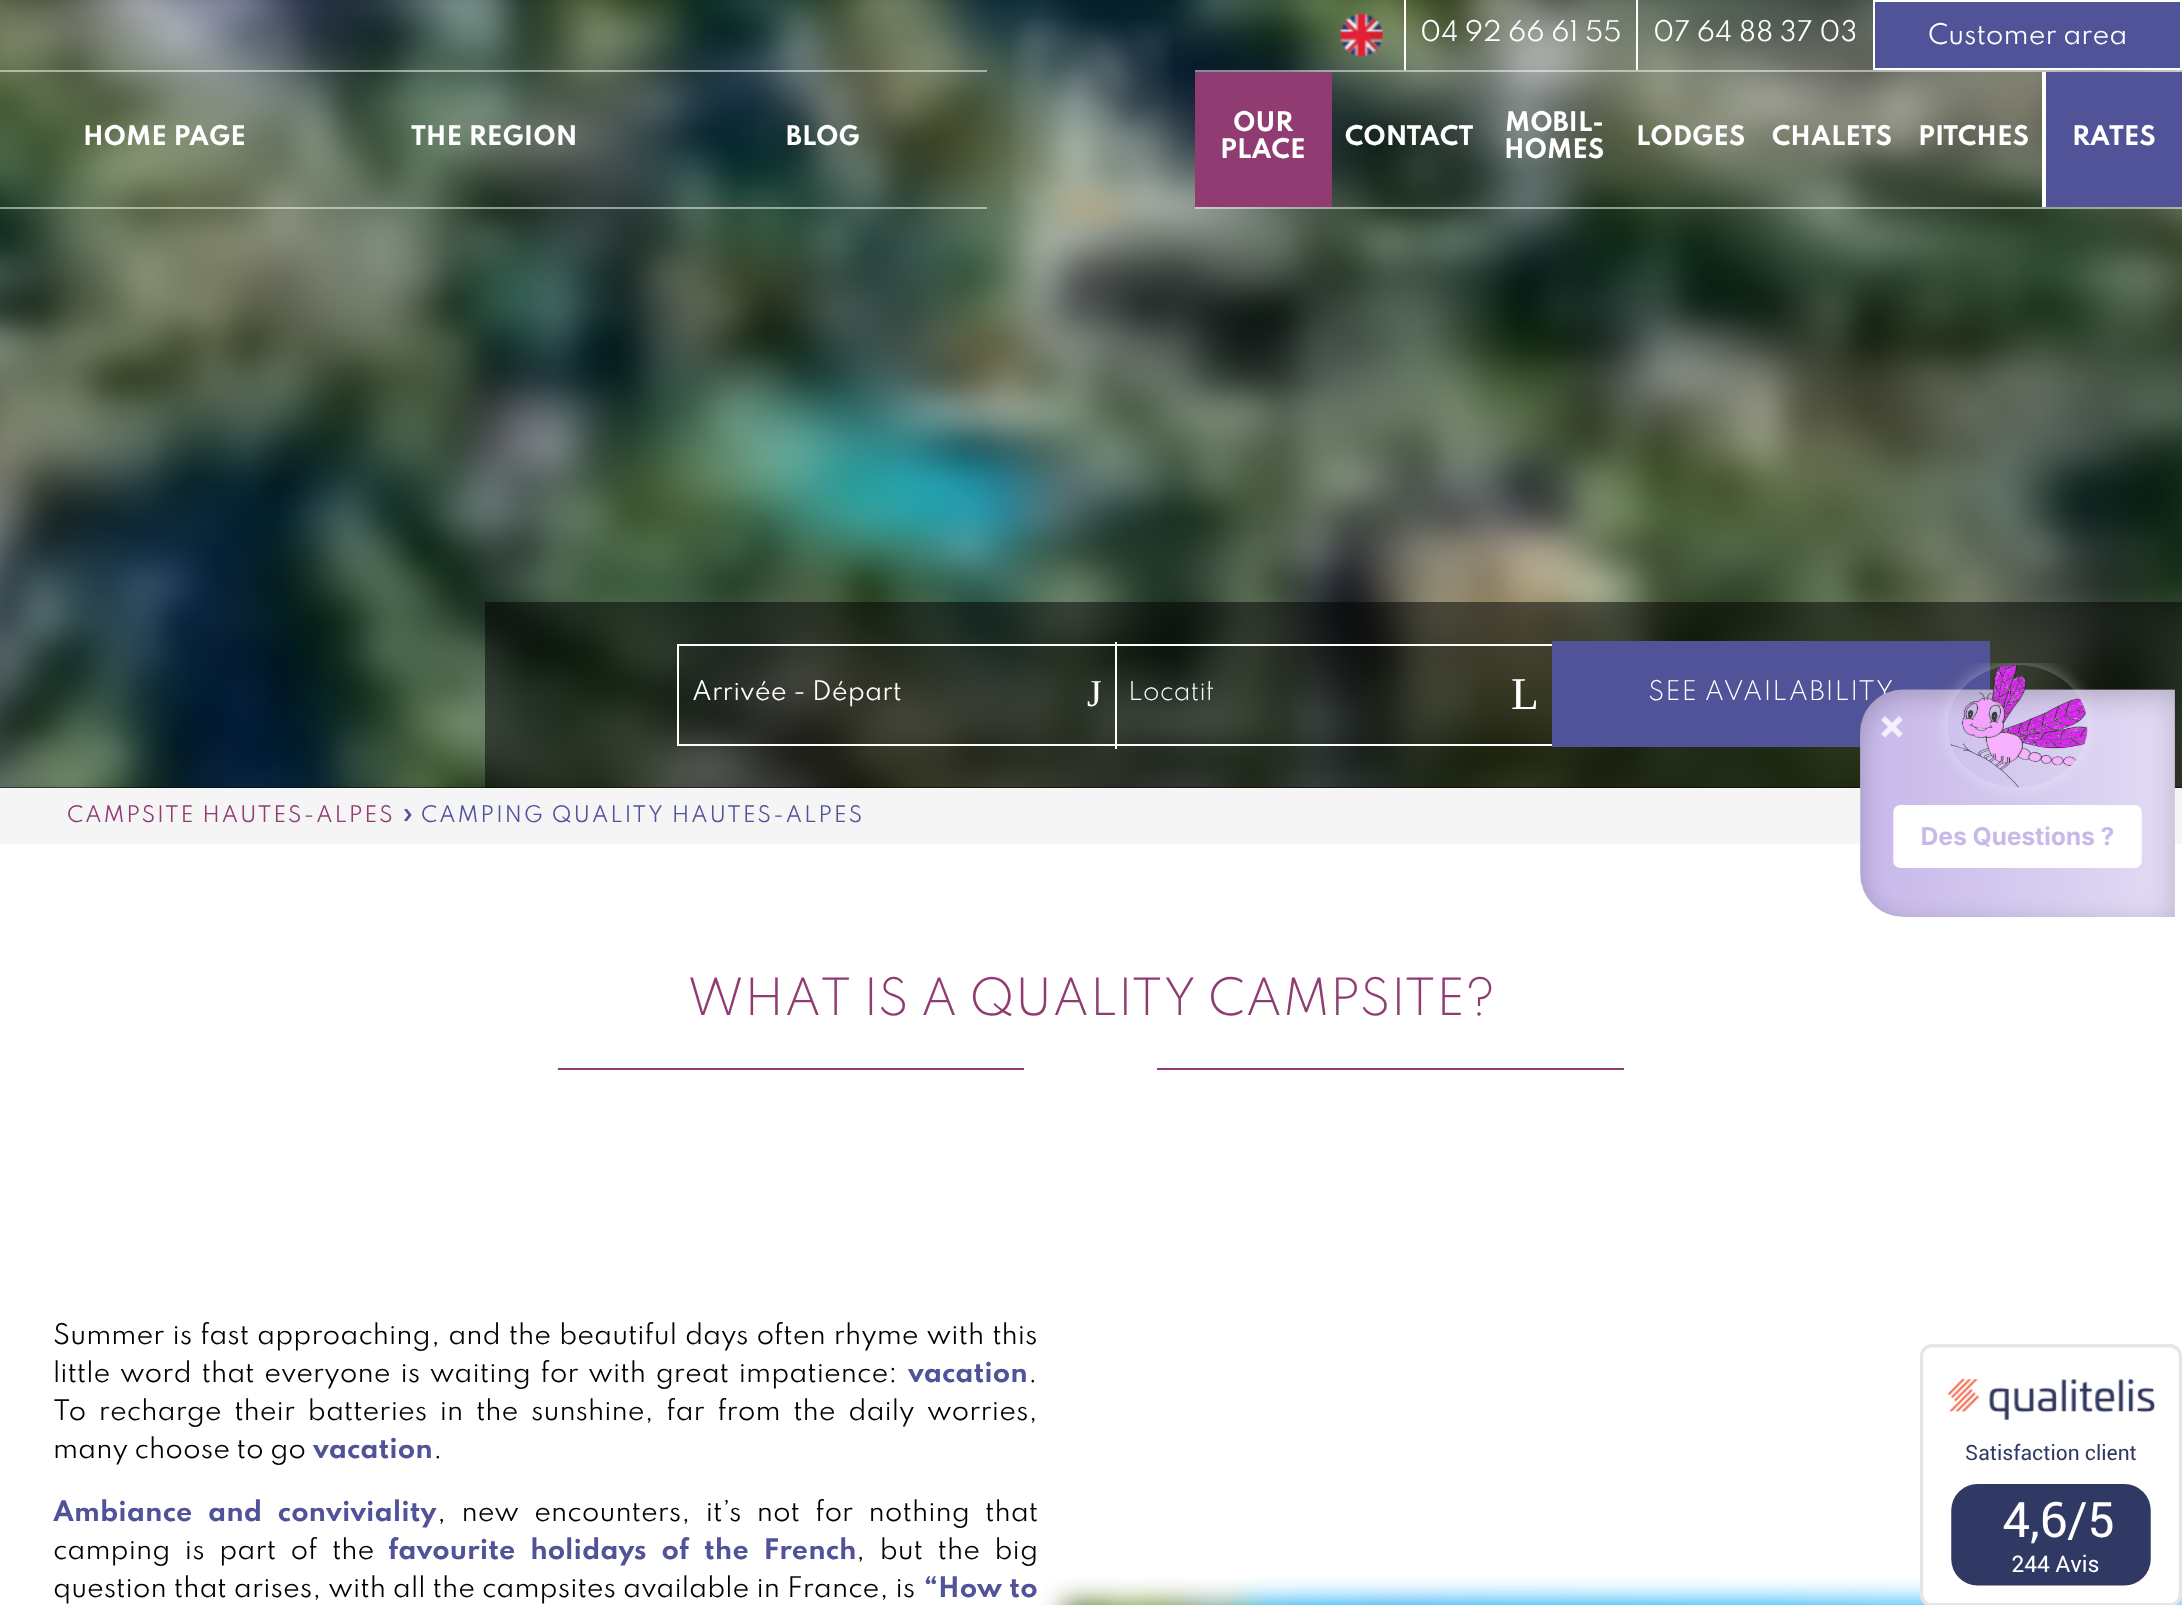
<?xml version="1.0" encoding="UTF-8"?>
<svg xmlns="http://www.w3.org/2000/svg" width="2182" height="1605">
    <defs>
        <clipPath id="clip1"><rect x="1129" y="681" width="423" height="28"/></clipPath>
    </defs>
    <rect width="100%" height="100%" fill="#FFFFFF"/>
    <rect x="0" y="0" width="2182" height="788" fill="#000000"/>
    <image x="0" y="0" width="2182" height="788" href="img_03.png"/>
    <image x="1339" y="13" width="44" height="44" href="img_01.png"/>
    <rect x="1404" y="0" width="2" height="70" fill="#FFFFFF"/>
    <text x="1420" y="41" font-family="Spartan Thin" font-size="25.25" fill="#FFFFFF">04 92 66 61 55</text>
    <rect x="1636" y="0" width="2" height="70" fill="#FFFFFF"/>
    <text x="1653" y="41" font-family="Spartan Thin" font-size="25.25" fill="#FFFFFF">07 64 88 37 03</text>
    <rect x="1874" y="1" width="307" height="68" fill="#515398" stroke="#FFFFFF" stroke-width="2"/>
    <text x="1928" y="44" font-family="Spartan Thin" font-size="25.25" fill="#FFFFFF">Customer area</text>
    <rect x="0" y="70" width="987" height="2" fill="#FFFFFF" fill-opacity="0.5"/>
    <rect x="0" y="207" width="987" height="2" fill="#FFFFFF" fill-opacity="0.5"/>
    <text x="83" y="145" font-family="Spartan Thin" font-size="24" font-weight="700" fill="#FFFFFF">HOME PAGE</text>
    <text x="411" y="145" font-family="Spartan Thin" font-size="24" font-weight="700" fill="#FFFFFF">THE REGION</text>
    <text x="786" y="145" font-family="Spartan Thin" font-size="24" font-weight="700" fill="#FFFFFF">BLOG</text>
    <image x="1012" y="18" width="160" height="213" href="img_02.png"/>
    <rect x="1195" y="70" width="987" height="2" fill="#FFFFFF" fill-opacity="0.5"/>
    <rect x="1195" y="207" width="987" height="2" fill="#FFFFFF" fill-opacity="0.5"/>
    <rect x="1195" y="72" width="137" height="135" fill="#903C73"/>
    <text x="1233" y="131" font-family="Spartan Thin" font-size="24" font-weight="700" fill="#FFFFFF">OUR</text>
    <text x="1220" y="158" font-family="Spartan Thin" font-size="24" font-weight="700" fill="#FFFFFF">PLACE</text>
    <text x="1345" y="145" font-family="Spartan Thin" font-size="24" font-weight="700" fill="#FFFFFF">CONTACT</text>
    <text x="1505" y="131" font-family="Spartan Thin" font-size="24" font-weight="700" fill="#FFFFFF">MOBIL-</text>
    <text x="1504" y="158" font-family="Spartan Thin" font-size="24" font-weight="700" fill="#FFFFFF">HOMES</text>
    <text x="1636" y="145" font-family="Spartan Thin" font-size="24" font-weight="700" fill="#FFFFFF">LODGES</text>
    <text x="1772" y="145" font-family="Spartan Thin" font-size="24" font-weight="700" fill="#FFFFFF">CHALETS</text>
    <text x="1918" y="145" font-family="Spartan Thin" font-size="24" font-weight="700" fill="#FFFFFF">PITCHES</text>
    <rect x="2046" y="72" width="136" height="135" fill="#515398"/>
    <rect x="2042" y="72" width="4" height="135" fill="#FFFFFF"/>
    <text x="2072" y="145" font-family="Spartan Thin" font-size="24" font-weight="700" fill="#FFFFFF">RATES</text>
    <rect x="485" y="602" width="1697" height="186" fill="#000000" fill-opacity="0.5"/>
    <rect x="677" y="644" width="438" height="2" fill="#FFFFFF"/>
    <rect x="677" y="744" width="438" height="2" fill="#FFFFFF"/>
    <rect x="677" y="644" width="2" height="102" fill="#FFFFFF"/>
    <text x="692" y="700" font-family="Spartan Thin" font-size="24" fill="#FFFFFF">Arrivée - Départ</text>
    <text x="1087" y="706" font-family="Liberation Serif" font-size="38" fill="#FFFFFF">J</text>
    <rect x="1115" y="642" width="2" height="107" fill="#FFFFFF"/>
    <rect x="1115" y="644" width="437" height="2" fill="#FFFFFF"/>
    <rect x="1115" y="744" width="437" height="2" fill="#FFFFFF"/>
    <g clip-path="url(#clip1)">
        <text x="1128" y="700" font-family="Spartan Thin" font-size="24" font-weight="300" fill="#FFFFFF">Locatif</text>
    </g>
    <text x="1511" y="709" font-family="Liberation Serif" font-size="45.5" fill="#FFFFFF">L</text>
    <rect x="1552" y="641" width="438" height="106" fill="#515398"/>
    <text x="1648" y="700" font-family="Spartan Thin" font-size="24" font-weight="300" letter-spacing="0.9" fill="#FFFFFF">SEE AVAILABILITY</text>
    <rect x="0" y="788" width="2182" height="56" fill="#F5F5F5"/>
    <image x="1860" y="663" width="315" height="254" href="img_04.png"/>
    <text x="67" y="822" font-family="Spartan Thin" font-size="20.25" letter-spacing="1.75" fill="#903C73">CAMPSITE HAUTES-ALPES</text>
    <text x="401" y="822" font-family="Spartan Thin" font-size="25.25" fill="#515398">»</text>
    <text x="421" y="822" font-family="Spartan Thin" font-size="20.25" letter-spacing="1.75" fill="#515398">CAMPING QUALITY HAUTES-ALPES</text>
    <text x="687" y="1015" font-family="Spartan Thin" font-size="45.5" font-weight="300" fill="#903C73">WHAT IS A QUALITY CAMPSITE?</text>
    <rect x="558" y="1068" width="1066" height="2" fill="#903C73"/>
    <rect x="1024" y="1068" width="133" height="2" fill="#FFFFFF"/>
    <text font-family="Spartan Thin" font-size="25.25" fill="#010101">
        <tspan x="53" y="1344" word-spacing="1.5">Summer is fast approaching, and the beautiful days often rhyme with this</tspan>
        <tspan x="53" y="1382" word-spacing="3.25">little word that everyone is waiting for with great impatience:</tspan>
    </text>
    <text x="908" y="1382" font-family="Spartan Thin" font-size="25.25" font-weight="700" fill="#515398">vacation</text>
    <text x="1028" y="1382" font-family="Spartan Thin" font-size="25.25" fill="#010101">.</text>
    <text font-family="Spartan Thin" font-size="25.25" fill="#010101">
        <tspan x="53" y="1420" word-spacing="6.1">To recharge their batteries in the sunshine, far from the daily worries,</tspan>
        <tspan x="53" y="1458">many choose to go</tspan>
    </text>
    <text x="313" y="1458" font-family="Spartan Thin" font-size="25.25" font-weight="700" fill="#515398">vacation</text>
    <text x="433" y="1458" font-family="Spartan Thin" font-size="25.25" fill="#010101">.</text>
    <text x="53" y="1521" word-spacing="8.75" font-family="Spartan Thin" font-size="25.25" font-weight="700" fill="#515398">Ambiance and conviviality</text>
    <text x="437" y="1521" word-spacing="8.75" font-family="Spartan Thin" font-size="25.25" fill="#010101">, new encounters, it’s not for nothing that</text>
    <text x="53" y="1559" word-spacing="8" font-family="Spartan Thin" font-size="25.25" fill="#010101">camping is part of the</text>
    <text x="388" y="1559" word-spacing="8" font-family="Spartan Thin" font-size="25.25" font-weight="700" fill="#515398">favourite holidays of the French</text>
    <text x="856" y="1559" word-spacing="8" font-family="Spartan Thin" font-size="25.25" fill="#010101">, but the big</text>
    <text x="53" y="1597" word-spacing="0.5" font-family="Spartan Thin" font-size="25.25" fill="#010101">question that arises, with all the campsites available in France, is</text>
    <text x="924" y="1597" word-spacing="0.5" font-family="Spartan Thin" font-size="25.25" font-weight="700" fill="#515398">“How to</text>
    <image x="1042" y="1578" width="1140" height="27" href="img_05.png"/>
    <image x="1920" y="1344" width="262" height="261" href="img_06.png"/>
</svg>
